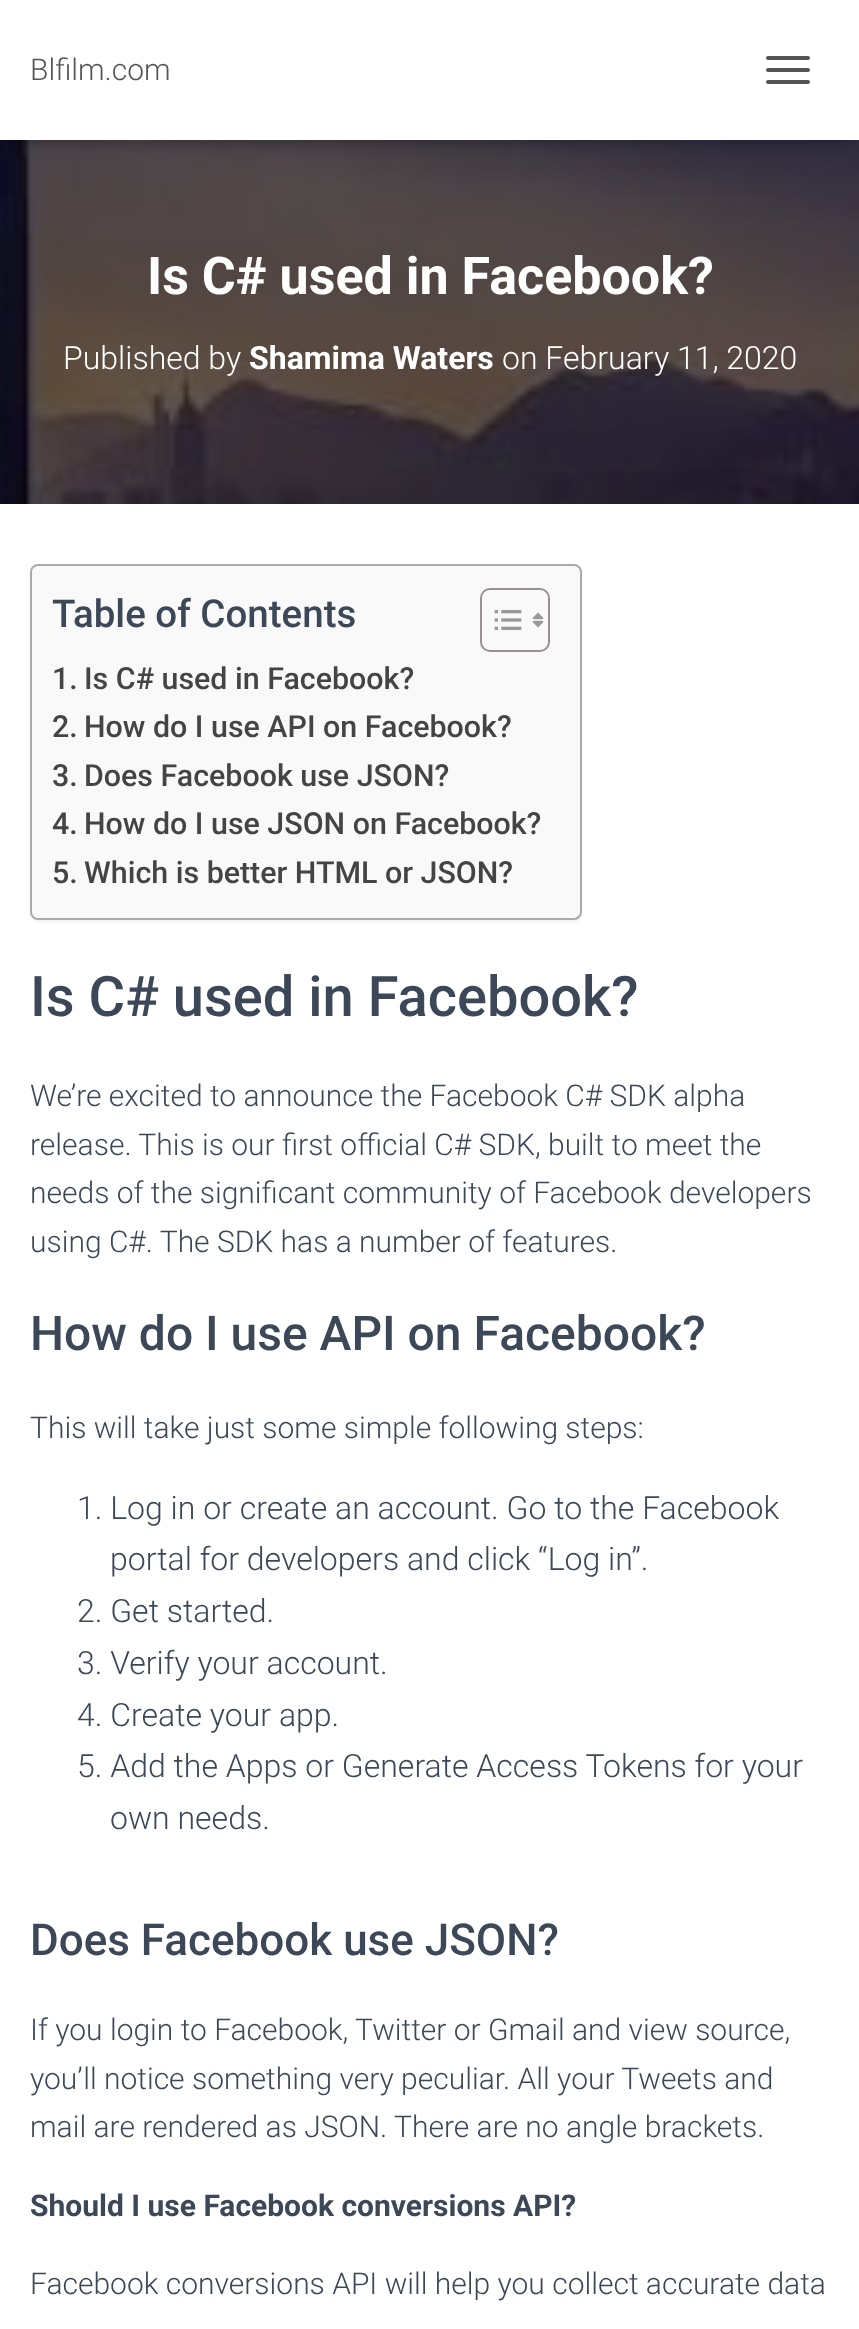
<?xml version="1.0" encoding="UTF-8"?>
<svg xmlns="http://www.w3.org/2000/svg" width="859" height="2329">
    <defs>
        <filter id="blur1" x="-50%" y="-200%" width="200%" height="500%"><feGaussianBlur stdDeviation="5"/></filter>
        <filter id="blur2" x="-50%" y="-200%" width="200%" height="500%"><feGaussianBlur stdDeviation="10"/></filter>
        <filter id="blur3" x="-50%" y="-200%" width="200%" height="500%"><feGaussianBlur stdDeviation="30"/></filter>
        <filter id="blur4" x="-50%" y="-200%" width="200%" height="500%"><feGaussianBlur stdDeviation="1"/></filter>
    </defs>
    <rect width="100%" height="100%" fill="#FFFFFF"/>
    <image x="0" y="140" width="859" height="364" href="img_01.png"/>
    <rect x="4" y="12" width="852" height="132" fill="#000000" fill-opacity="0.1" filter="url(#blur1)"/>
    <rect x="0" y="2" width="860" height="140" fill="#000000" fill-opacity="0.12" filter="url(#blur2)"/>
    <rect x="12" y="14" width="836" height="116" fill="#000000" fill-opacity="0.42" filter="url(#blur2)"/>
    <rect x="0" y="0" width="859" height="140" fill="#FFFFFF"/>
    <text x="30" y="80" font-family="Roboto" font-size="30" font-weight="300" fill="#555555">Blfilm.com</text>
    <rect x="766" y="56" width="44" height="4" rx="2" fill="#555555"/>
    <rect x="766" y="68" width="44" height="4" rx="2" fill="#555555"/>
    <rect x="766" y="80" width="44" height="4" rx="2" fill="#555555"/>
    <text x="147" y="294" font-family="Roboto" font-size="52" font-weight="700" fill="#FFFFFF">Is C# used in Facebook?</text>
    <text x="63" y="369" font-family="Roboto" font-size="32" font-weight="300" fill="#FFFFFF">Published by</text>
    <text x="249" y="369" font-family="Roboto" font-size="32" font-weight="700" fill="#FFFFFF">Shamima Waters</text>
    <text x="502" y="369" font-family="Roboto" font-size="32" font-weight="300" fill="#FFFFFF">on February 11, 2020</text>
    <rect x="-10" y="506" width="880" height="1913" fill="#000000" fill-opacity="0.12" filter="url(#blur3)"/>
    <rect x="0" y="504" width="859" height="1825" fill="#FFFFFF"/>
    <rect x="30" y="566" width="552" height="356" rx="8" fill="#000000" fill-opacity="0.05" filter="url(#blur4)"/>
    <rect x="31" y="565" width="550" height="354" rx="7" fill="#F9F9F9" stroke="#AAAAAA" stroke-width="2"/>
    <text x="52" y="627" font-family="Roboto" font-size="38.5" font-weight="500" fill="#3C4858">Table of Contents</text>
    <rect x="481" y="589" width="68" height="62" rx="9" fill="none" stroke="#999191" stroke-width="2"/>
    <image x="494" y="610" width="28" height="20" href="img_02.png"/>
    <image x="532" y="612" width="12" height="16" href="img_03.png"/>
    <text x="52" y="689" font-family="Roboto" font-size="30.4" font-weight="500" fill="#444444">1.</text>
    <text x="84" y="689" font-family="Roboto" font-size="30.4" font-weight="500" fill="#444444">Is C# used in Facebook?</text>
    <text x="52" y="737" font-family="Roboto" font-size="30.4" font-weight="500" fill="#444444">2.</text>
    <text x="84" y="737" font-family="Roboto" font-size="30.4" font-weight="500" fill="#444444">How do I use API on Facebook?</text>
    <text x="52" y="786" font-family="Roboto" font-size="30.4" font-weight="500" fill="#444444">3.</text>
    <text x="84" y="786" font-family="Roboto" font-size="30.4" font-weight="500" fill="#444444">Does Facebook use JSON?</text>
    <text x="52" y="834" font-family="Roboto" font-size="30.4" font-weight="500" fill="#444444">4.</text>
    <text x="84" y="834" font-family="Roboto" font-size="30.4" font-weight="500" fill="#444444">How do I use JSON on Facebook?</text>
    <text x="52" y="883" font-family="Roboto" font-size="30.4" font-weight="500" fill="#444444">5.</text>
    <text x="84" y="883" font-family="Roboto" font-size="30.4" font-weight="500" fill="#444444">Which is better HTML or JSON?</text>
    <text x="30" y="1016" font-family="Roboto" font-size="56" font-weight="500" fill="#3C4858">Is C# used in Facebook?</text>
    <text font-family="Roboto" font-size="30" font-weight="300" fill="#3C4858">
        <tspan x="30" y="1106">We’re excited to announce the Facebook C# SDK alpha</tspan>
        <tspan x="30" y="1155">release. This is our first official C# SDK, built to meet the</tspan>
        <tspan x="30" y="1203">needs of the significant community of Facebook developers</tspan>
        <tspan x="30" y="1252">using C#. The SDK has a number of features.</tspan>
    </text>
    <text x="30" y="1350" font-family="Roboto" font-size="48" font-weight="500" fill="#3C4858">How do I use API on Facebook?</text>
    <text x="30" y="1438" font-family="Roboto" font-size="30" font-weight="300" fill="#3C4858">This will take just some simple following steps:</text>
    <text x="77" y="1519" font-family="Roboto" font-size="32" font-weight="300" fill="#3C4858">1. Log in or create an account. Go to the Facebook</text>
    <text x="110" y="1570" font-family="Roboto" font-size="32" font-weight="300" fill="#3C4858">portal for developers and click “Log in”.</text>
    <text font-family="Roboto" font-size="32" font-weight="300" fill="#3C4858">
        <tspan x="77" y="1622">2. Get started.</tspan>
        <tspan x="77" y="1674">3. Verify your account.</tspan>
        <tspan x="77" y="1726">4. Create your app.</tspan>
        <tspan x="77" y="1777">5. Add the Apps or Generate Access Tokens for your</tspan>
    </text>
    <text x="110" y="1829" font-family="Roboto" font-size="32" font-weight="300" fill="#3C4858">own needs.</text>
    <text x="30" y="1955" font-family="Roboto" font-size="44" font-weight="500" fill="#3C4858">Does Facebook use JSON?</text>
    <text font-family="Roboto" font-size="30" font-weight="300" fill="#3C4858">
        <tspan x="30" y="2040">If you login to Facebook, Twitter or Gmail and view source,</tspan>
        <tspan x="30" y="2089">you’ll notice something very peculiar. All your Tweets and</tspan>
        <tspan x="30" y="2137">mail are rendered as JSON. There are no angle brackets.</tspan>
    </text>
    <text x="30" y="2216" font-family="Roboto" font-size="30" font-weight="700" fill="#3C4858">Should I use Facebook conversions API?</text>
    <text x="30" y="2294" font-family="Roboto" font-size="30" font-weight="300" fill="#3C4858">Facebook conversions API will help you collect accurate data</text>
</svg>
